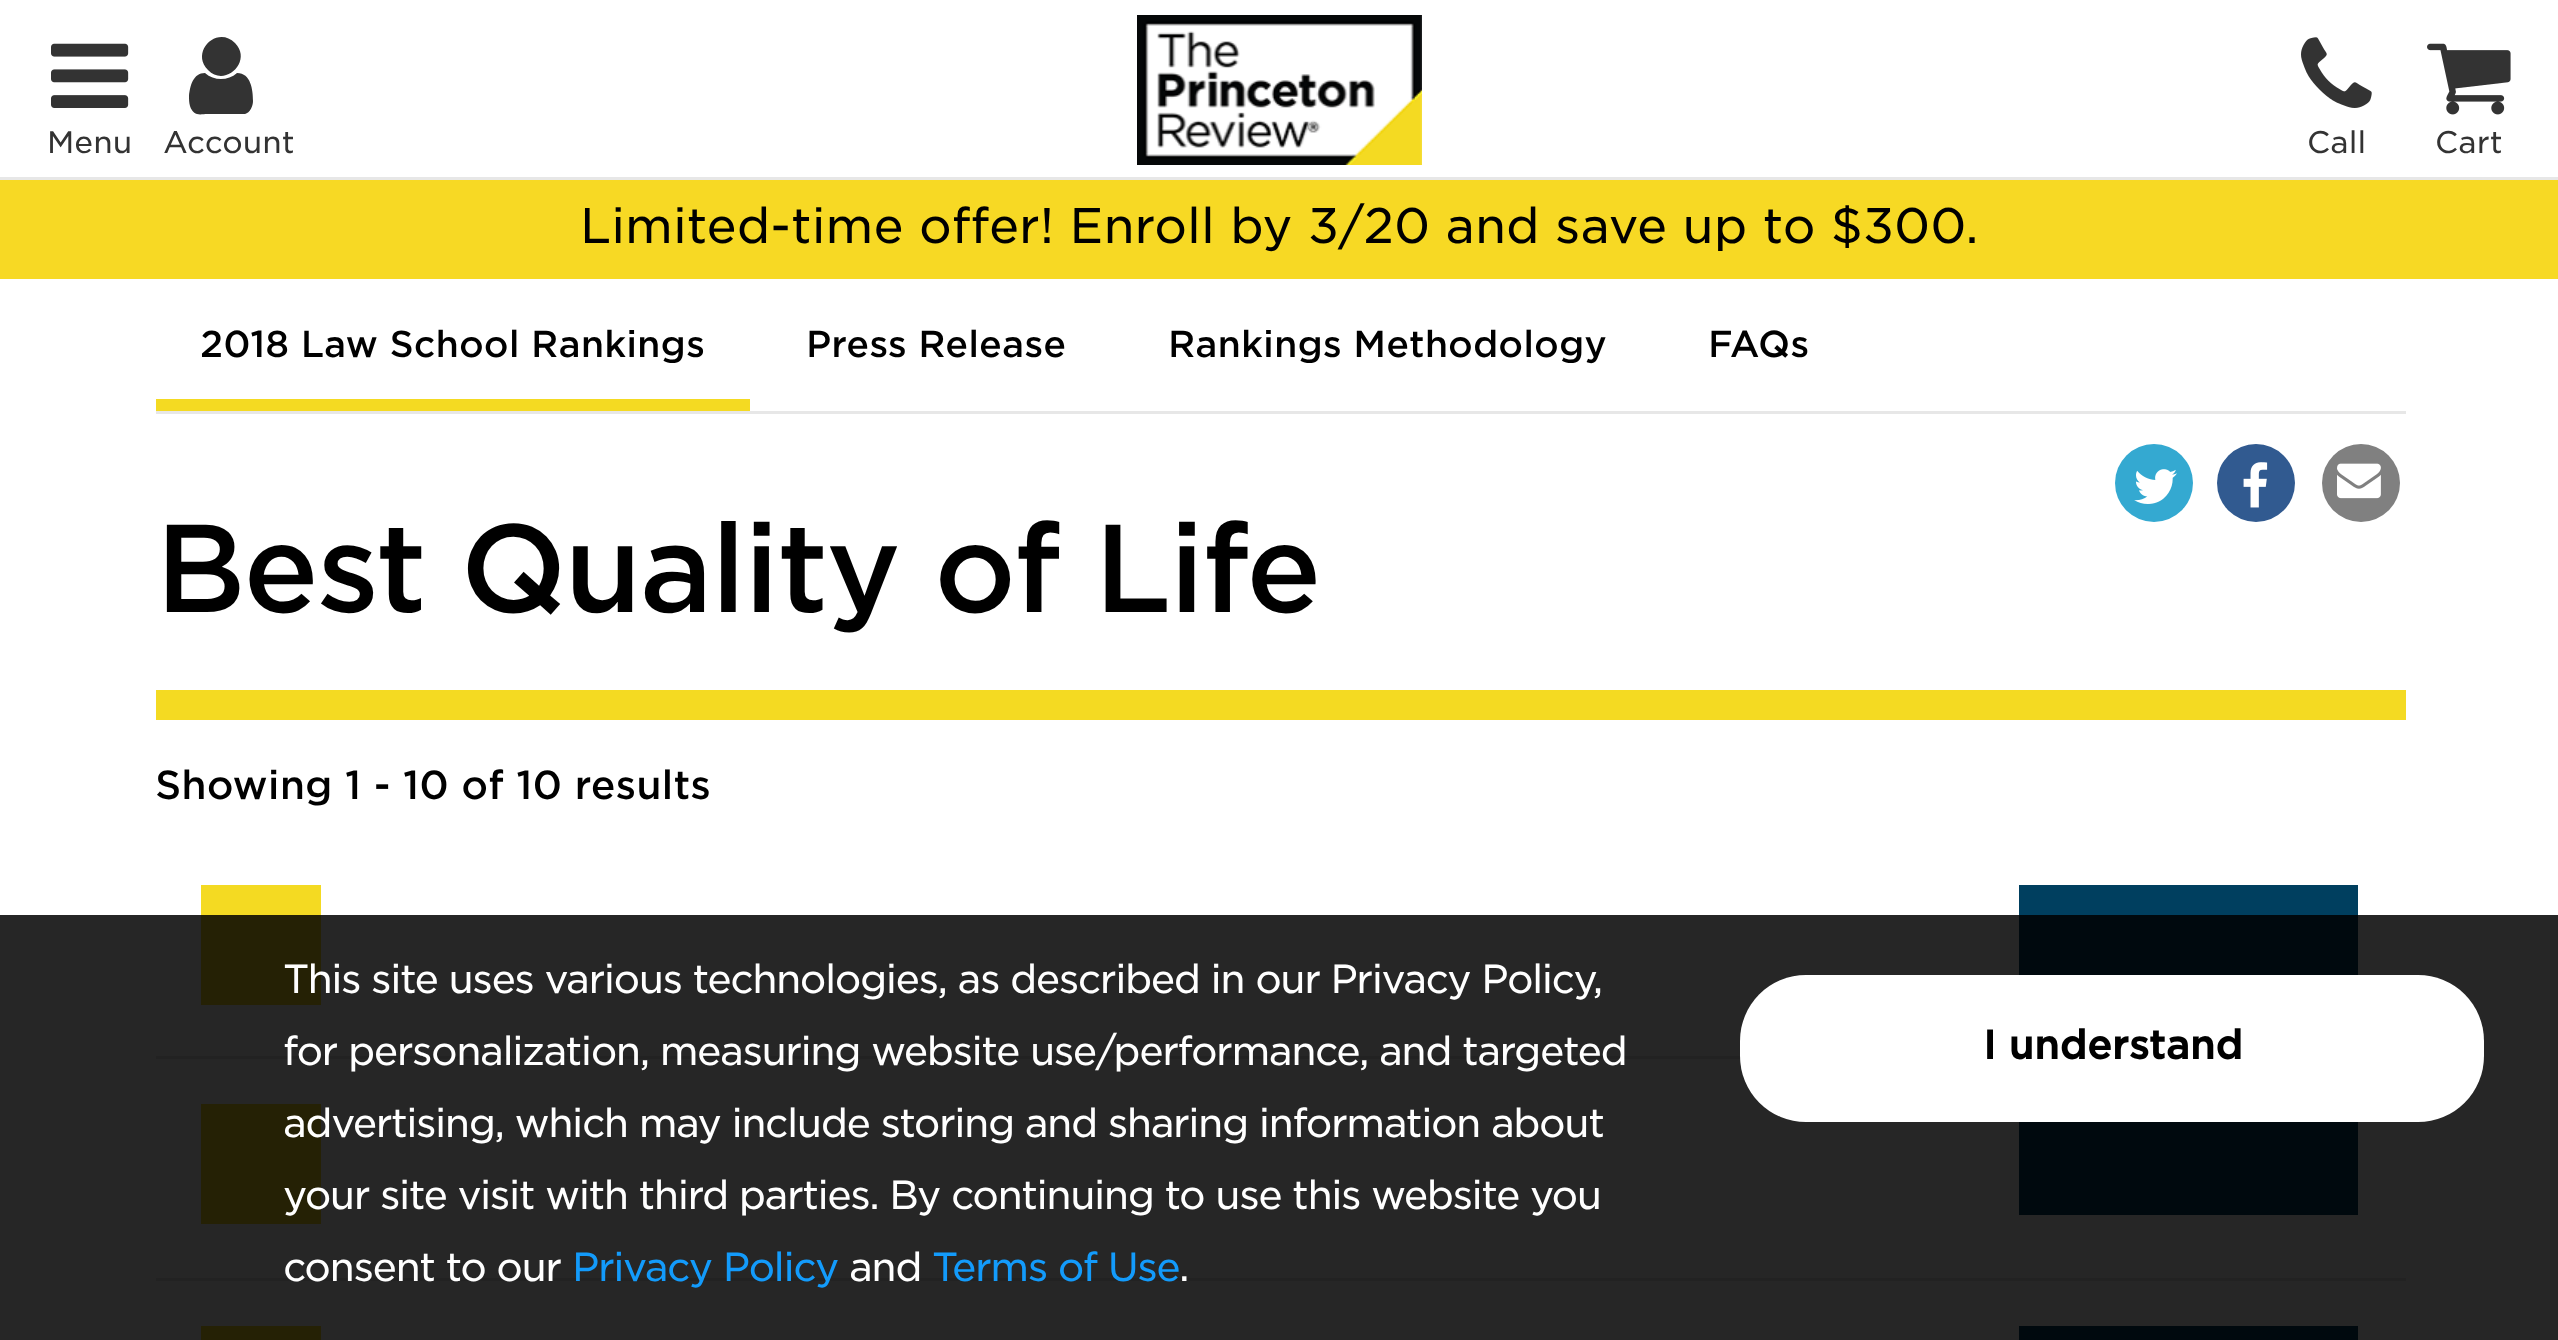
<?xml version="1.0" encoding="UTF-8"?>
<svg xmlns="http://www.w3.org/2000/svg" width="2558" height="1340">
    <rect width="100%" height="100%" fill="#FFFFFF"/>
    <rect x="0" y="177" width="2558" height="3" fill="#E7E7E7"/>
    <image x="51" y="43" width="78" height="65" href="img_01.png"/>
    <text x="47" y="153" font-family="'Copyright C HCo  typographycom'" font-size="30" font-weight="300" fill="#333333">Menu</text>
    <path d="M 253 101 C 253 106 250 113 245 114 H 207 C 204 114 200 115 197 114 C 193 113 191 109 190 106 C 189 103 189 99 189 96 C 190 86 193 73 205 73 C 214 81 228 81 237 73 C 251 73 253 90 253 101 Z M 235 43 C 253 61 225 88 208 70 C 190 52 217 25 235 43 Z" fill="#333333"/>
    <text x="163" y="153" font-family="'Copyright C HCo  typographycom'" font-size="30" font-weight="300" fill="#333333">Account</text>
    <image x="1137" y="15" width="285" height="150" href="img_02.png"/>
    <image x="2301" y="37" width="71" height="71" href="img_03.png"/>
    <text x="2307" y="153" font-family="'Copyright C HCo  typographycom'" font-size="30" font-weight="300" fill="#333333">Call</text>
    <image x="2427" y="43" width="84" height="72" href="img_04.png"/>
    <text x="2435" y="153" font-family="'Copyright C HCo  typographycom'" font-size="30" font-weight="300" fill="#333333">Cart</text>
    <rect x="0" y="180" width="2558" height="99" fill="#F7D924"/>
    <text x="580" y="243" font-family="'Copyright C HCo  typographycom'" font-size="48" font-weight="300" fill="#000000">Limited-time offer! Enroll by 3/20 and save up to $300.</text>
    <rect x="156" y="411" width="2250" height="3" fill="#E7E7E7"/>
    <rect x="156" y="399" width="594" height="12" fill="#F4DA22"/>
    <text x="200" y="357" font-family="'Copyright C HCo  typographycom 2'" font-size="36" font-weight="300" fill="#000000">2018 Law School Rankings</text>
    <text x="806" y="357" font-family="'Copyright C HCo  typographycom 2'" font-size="36" font-weight="300" fill="#000000">Press Release</text>
    <text x="1168" y="357" font-family="'Copyright C HCo  typographycom 2'" font-size="36" font-weight="300" fill="#000000">Rankings Methodology</text>
    <text x="1708" y="357" font-family="'Copyright C HCo  typographycom 2'" font-size="36" font-weight="300" fill="#000000">FAQs</text>
    <circle cx="2154" cy="483" r="39" fill="#34A9D1"/>
    <image x="2134" y="469" width="43" height="35" href="img_05.png"/>
    <circle cx="2256" cy="483" r="39" fill="#315A90"/>
    <image x="2243" y="462" width="25" height="46" href="img_06.png"/>
    <circle cx="2361" cy="483" r="39" fill="#808080"/>
    <image x="2337" y="463" width="44" height="36" href="img_07.png"/>
    <rect x="156" y="690" width="2250" height="30" fill="#F4DA22"/>
    <text x="155" y="612" font-family="'Copyright C HCo  typographycom 2'" font-size="120" font-weight="300" letter-spacing="-3" fill="#000000">Best Quality of Life</text>
    <text x="155" y="799" font-family="'Copyright C HCo  typographycom 2'" font-size="39" font-weight="300" fill="#000000">Showing 1 - 10 of 10 results</text>
    <rect x="156" y="1056" width="1585" height="3" fill="#E3E3E3"/>
    <rect x="201" y="885" width="120" height="120" fill="#F4DA22"/>
    <rect x="2019" y="885" width="339" height="90" fill="#003F5F"/>
    <rect x="156" y="1278" width="2250" height="3" fill="#E3E3E3"/>
    <rect x="201" y="1104" width="120" height="120" fill="#F4DA22"/>
    <rect x="2019" y="1122" width="339" height="93" fill="#003F5F"/>
    <rect x="201" y="1326" width="120" height="14" fill="#F4DA22"/>
    <rect x="2019" y="1326" width="339" height="14" fill="#003F5F"/>
    <rect x="0" y="915" width="2558" height="425" fill="#000000" fill-opacity="0.85"/>
    <text font-family="'Copyright C HCo  typographycom'" font-size="39" font-weight="300" letter-spacing="-1.5" fill="#FFFFFF">
        <tspan x="283" y="993">This site uses various technologies, as described in our Privacy Policy,</tspan>
        <tspan x="283" y="1065">for personalization, measuring website use/performance, and targeted</tspan>
        <tspan x="283" y="1137">advertising, which may include storing and sharing information about</tspan>
        <tspan x="283" y="1209">your site visit with third parties. By continuing to use this website you</tspan>
        <tspan x="283" y="1281">consent to our</tspan>
    </text>
    <text x="572" y="1281" font-family="'Copyright C HCo  typographycom'" font-size="39" font-weight="300" letter-spacing="-1.5" fill="#139BFB">Privacy Policy</text>
    <text x="849" y="1281" font-family="'Copyright C HCo  typographycom'" font-size="39" font-weight="300" letter-spacing="-1.5" fill="#FFFFFF">and</text>
    <text x="932" y="1281" font-family="'Copyright C HCo  typographycom'" font-size="39" font-weight="300" letter-spacing="-1.5" fill="#139BFB">Terms of Use</text>
    <text x="1179" y="1281" font-family="'Copyright C HCo  typographycom'" font-size="39" font-weight="300" letter-spacing="-1.5" fill="#FFFFFF">.</text>
    <rect x="1740" y="975" width="744" height="147" rx="66" fill="#FFFFFF"/>
    <text x="1983" y="1059" font-family="'Copyright C HCo  typographycom'" font-size="39" font-weight="700" fill="#000000">I understand</text>
</svg>
